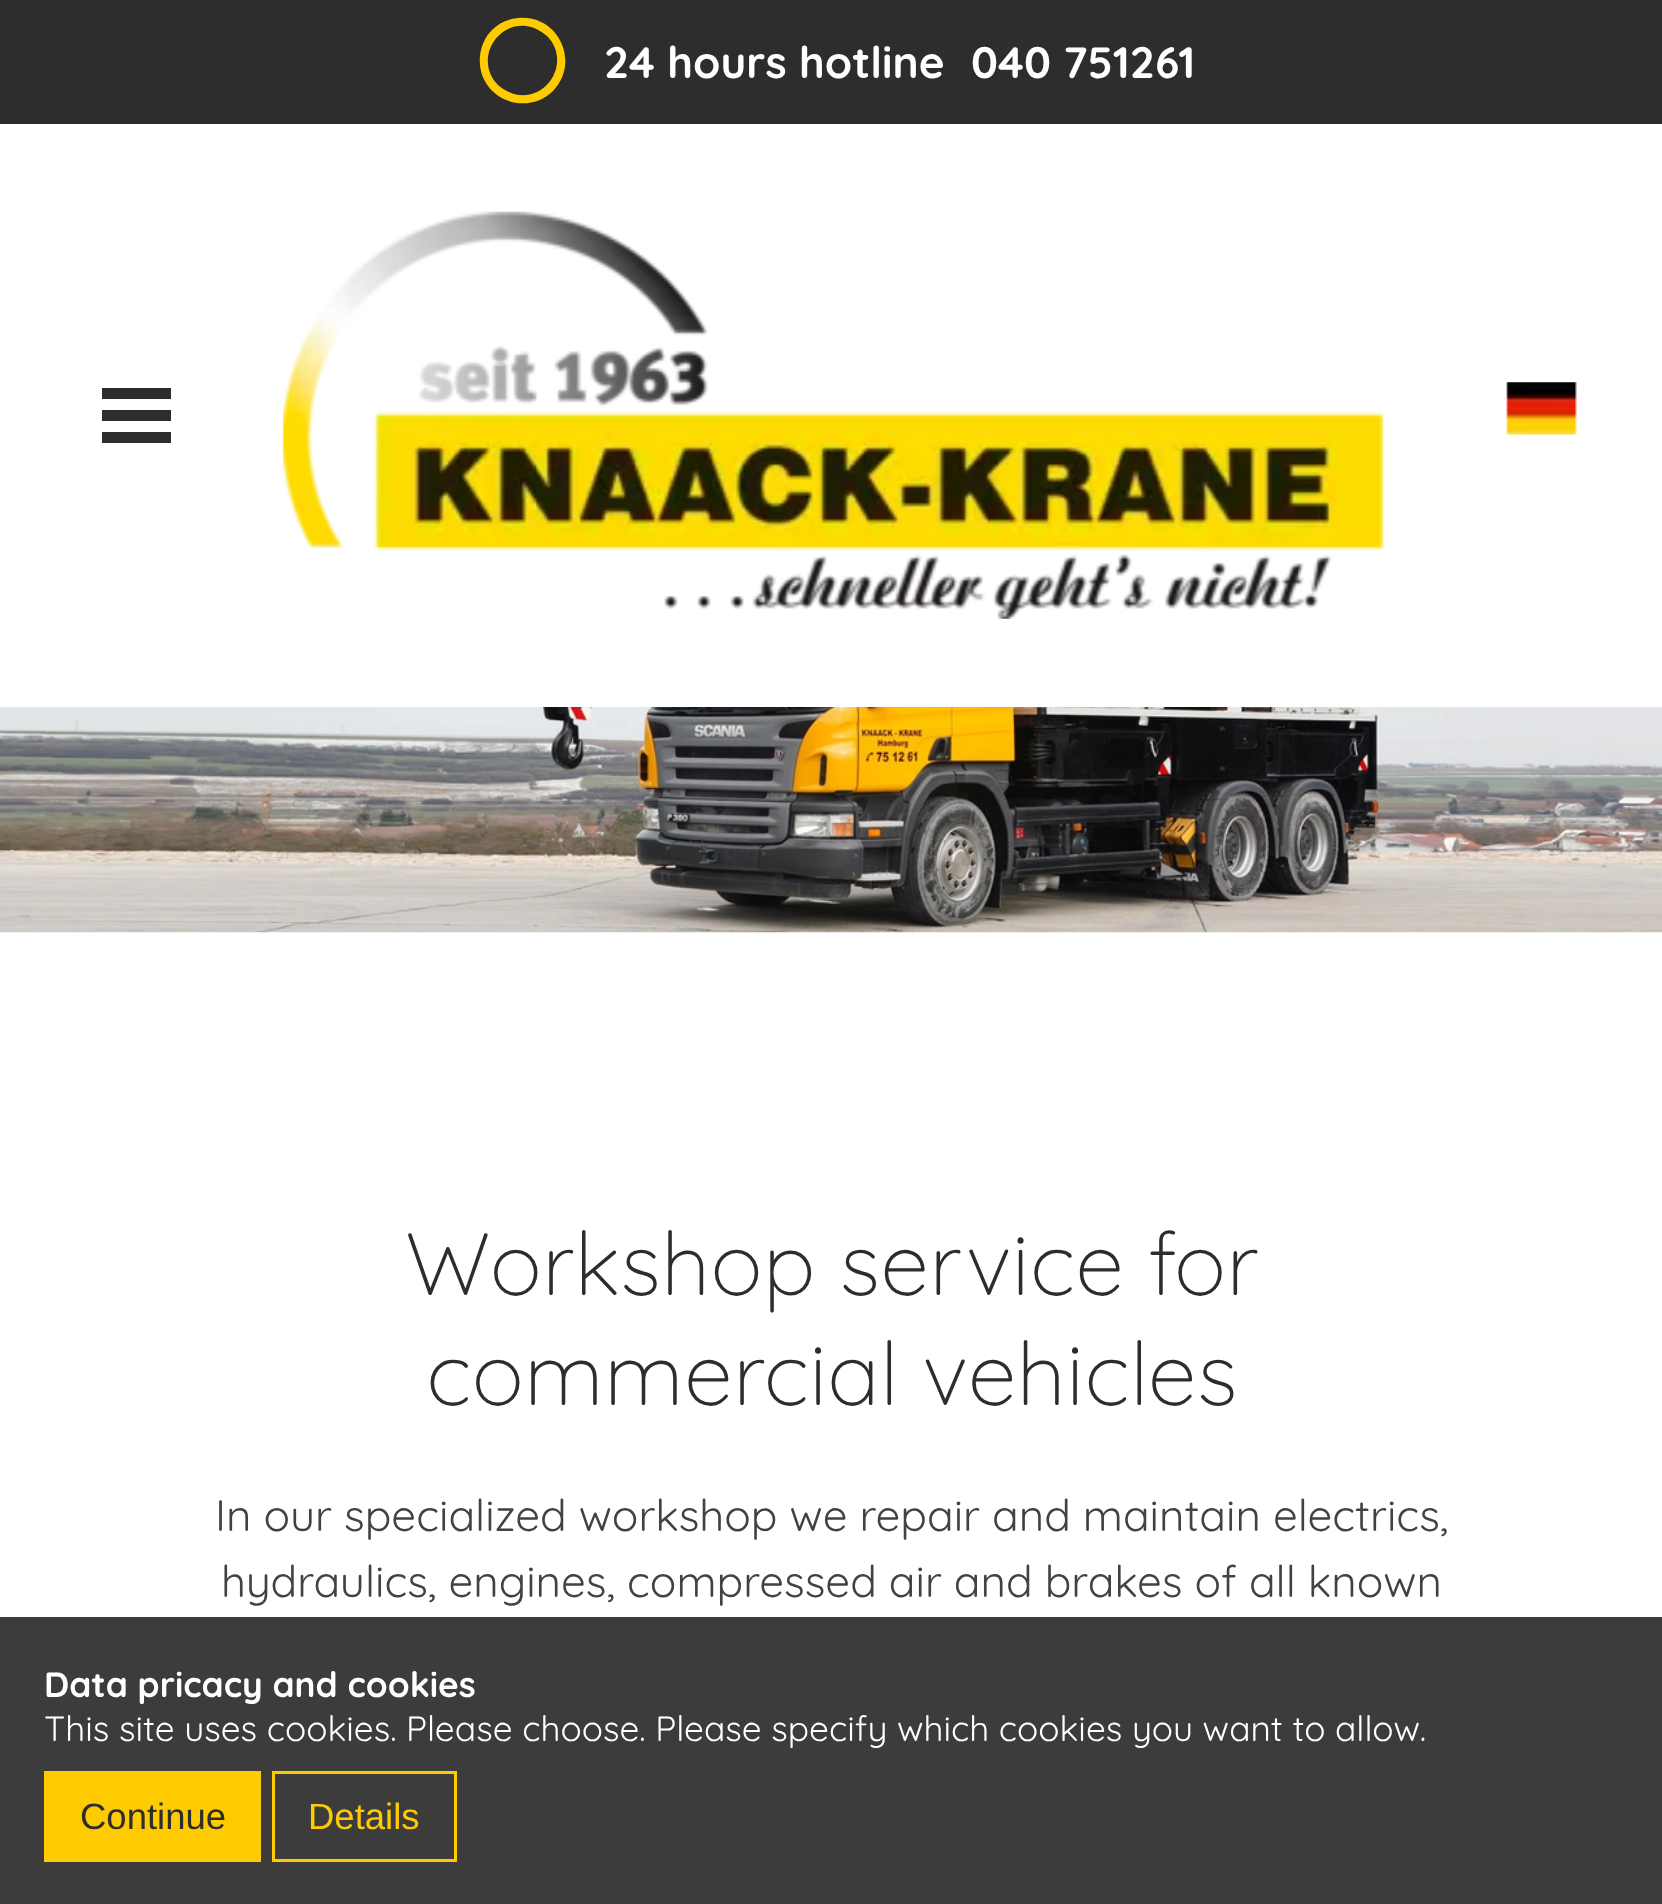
<?xml version="1.0" encoding="UTF-8"?>
<svg xmlns="http://www.w3.org/2000/svg" width="1662" height="1904">
    <rect width="100%" height="100%" fill="#FFFFFF"/>
    <rect x="0" y="1617" width="1662" height="287" fill="#3C3C3C"/>
    <rect x="0" y="0" width="1662" height="124" fill="#2D2D2D"/>
    <path d="M 492 30 C 499 23 508 19 518 18 C 558 14 581 62 553 91 C 524 119 476 96 480 56 C 481 46 485 37 492 30 Z M 498 85 C 504 90 511 94 519 95 C 551 98 570 59 547 36 C 541 31 534 27 526 26 C 494 23 475 62 498 85 Z" fill="#FECB00"/>
    <text x="604" y="78" font-family="Quicksand" font-size="44" font-weight="700" fill="#FFFFFF">24 hours hotline</text>
    <text x="971" y="78" font-family="Quicksand" font-size="44" font-weight="700" fill="#FFFFFF">040 751261</text>
    <rect x="102" y="410" width="69" height="11" fill="#2D2D2D"/>
    <rect x="102" y="388" width="69" height="11" fill="#2D2D2D"/>
    <rect x="102" y="432" width="69" height="11" fill="#2D2D2D"/>
    <image x="282" y="211" width="1102" height="408" href="img_01.png"/>
    <image x="1506" y="382" width="71" height="53" href="img_02.png"/>
    <image x="0" y="707" width="1662" height="226" href="img_03.png"/>
    <text x="405" y="1295" font-family="Quicksand" font-size="88" font-weight="300" fill="#2D2D2D">Workshop service for</text>
    <text x="426" y="1405" font-family="Quicksand" font-size="88" font-weight="300" fill="#2D2D2D">commercial vehicles</text>
    <text x="215" y="1531" font-family="Quicksand" font-size="44" fill="#424242">In our specialized workshop we repair and maintain electrics,</text>
    <text x="221" y="1597" font-family="Quicksand" font-size="44" fill="#424242">hydraulics, engines, compressed air and brakes of all known</text>
    <text x="44" y="1697" font-family="Quicksand" font-size="35.2" font-weight="700" fill="#FFFFFF">Data pricacy and cookies</text>
    <text x="44" y="1741" font-family="Quicksand" font-size="35.2" fill="#FFFFFF">This site uses cookies. Please choose. Please specify which cookies you want to allow.</text>
    <rect x="44" y="1771" width="217" height="91" fill="#FECB00"/>
    <text x="80" y="1829" font-family="Liberation Sans" font-size="36.5" fill="#2D2D2D">Continue</text>
    <rect x="273.5" y="1772.5" width="182" height="88" fill="none" stroke="#FECB00" stroke-width="3"/>
    <text x="308" y="1829" font-family="Liberation Sans" font-size="36.5" fill="#FECB00">Details</text>
</svg>
